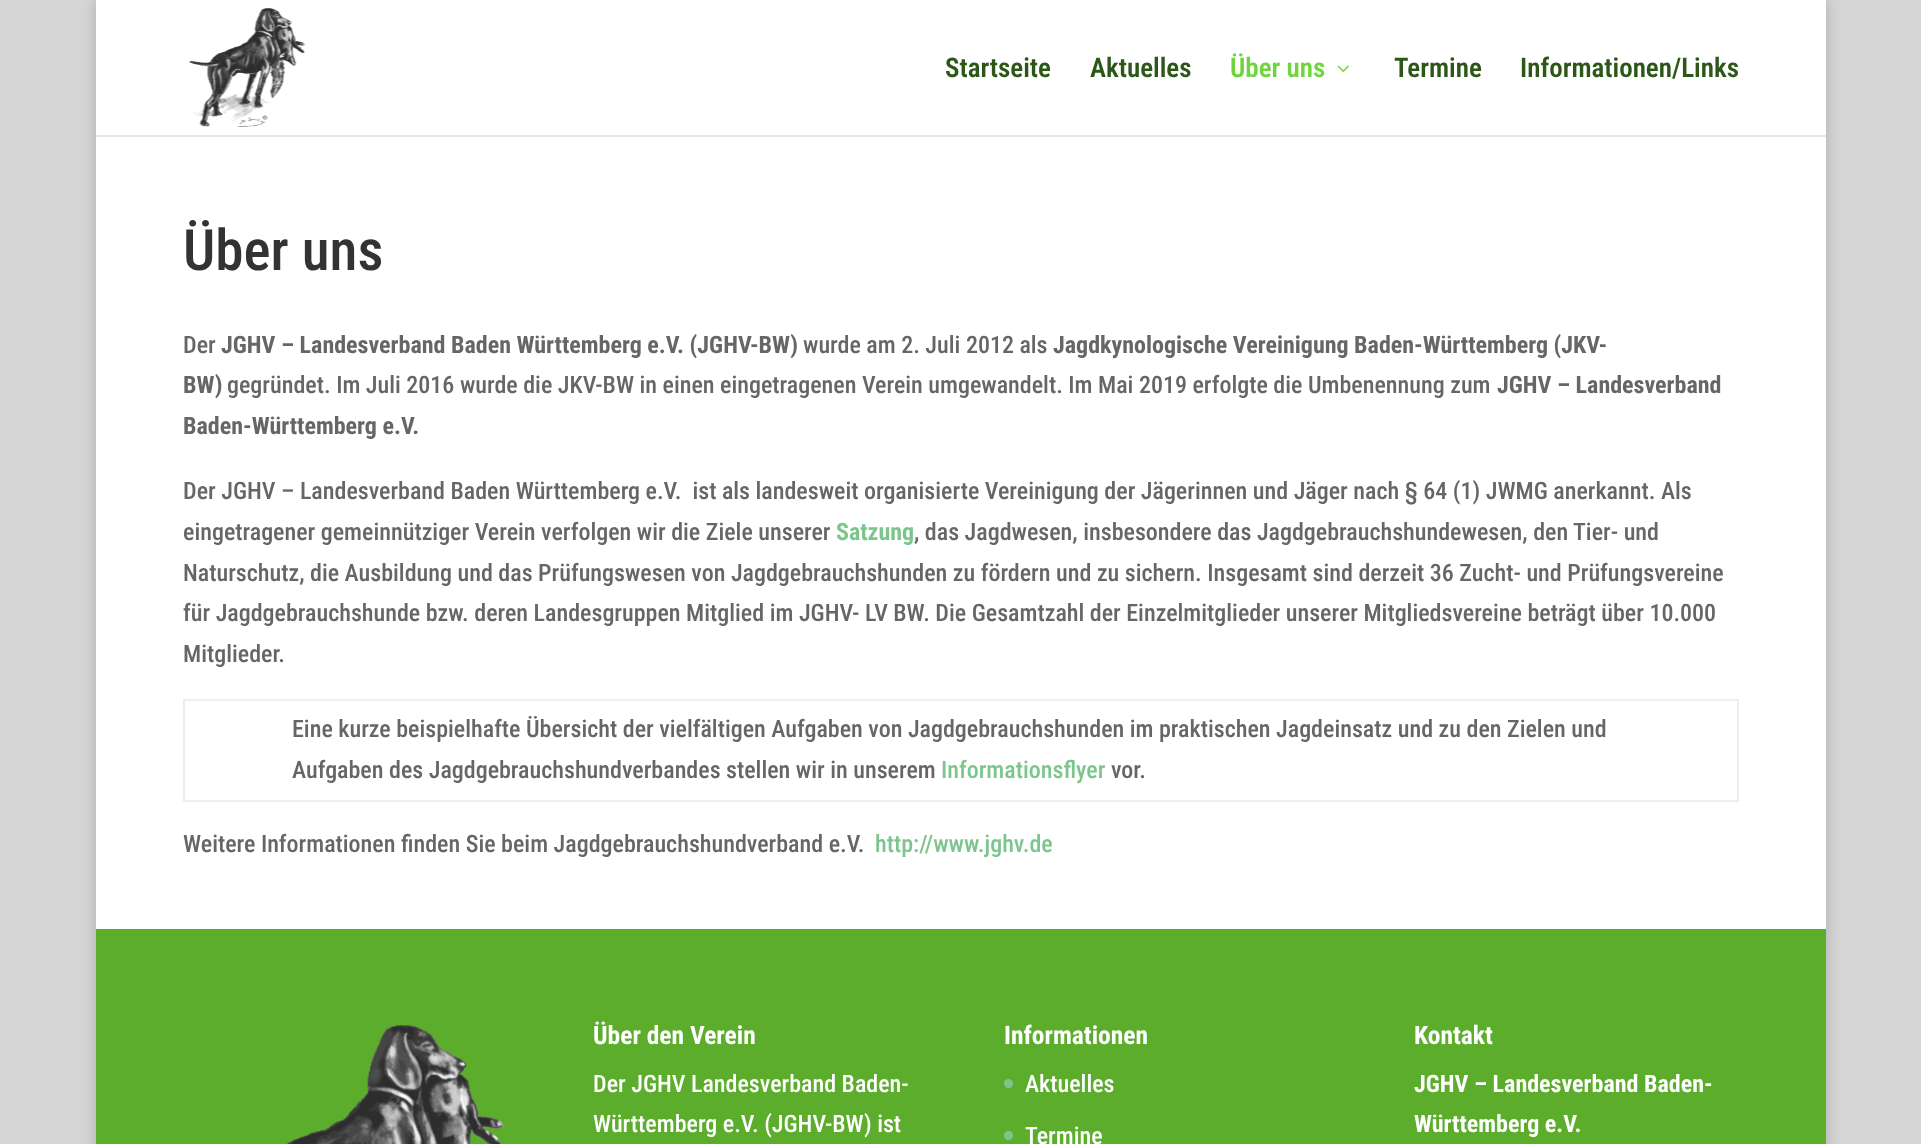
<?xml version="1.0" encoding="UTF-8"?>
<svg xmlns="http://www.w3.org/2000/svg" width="1921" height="1144">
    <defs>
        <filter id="blur1" x="-50%" y="-200%" width="200%" height="500%"><feGaussianBlur stdDeviation="7.5"/></filter>
    </defs>
    <rect width="100%" height="100%" fill="#D6D6D6"/>
    <rect x="96" y="0" width="1730" height="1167" fill="#000000" fill-opacity="0.2" filter="url(#blur1)"/>
    <path d="M 96 135 V 137 H 1826 V 2 V 135 Z" fill="#E6E6E6"/>
    <rect x="96" y="0" width="1730" height="135" fill="#FFFFFF"/>
    <image x="189" y="8" width="117" height="119" href="img_01.png"/>
    <text x="945" y="77" font-family="Roboto Condensed" font-size="27" font-weight="600" fill="#2C5718">Startseite</text>
    <text x="1090" y="77" font-family="Roboto Condensed" font-size="27" font-weight="600" fill="#2C5718">Aktuelles</text>
    <text x="1230" y="77" font-family="Roboto Condensed" font-size="27" font-weight="600" fill="#6ED63C">Über uns</text>
    <image x="1337" y="65" width="12" height="7" href="img_02.png"/>
    <text x="1394" y="77" font-family="Roboto Condensed" font-size="27" font-weight="600" fill="#2C5718">Termine</text>
    <text x="1520" y="77" font-family="Roboto Condensed" font-size="27" font-weight="600" fill="#2C5718">Informationen/Links</text>
    <rect x="96" y="137" width="1730" height="792" fill="#FFFFFF"/>
    <text x="183" y="270" font-family="Roboto Condensed" font-size="57" font-weight="500" fill="#333333">Über uns</text>
    <text x="183" y="353" font-family="Roboto Condensed" font-size="24" font-weight="500" fill="#666666">Der</text>
    <text x="221" y="353" font-family="Roboto Condensed" font-size="24" font-weight="700" fill="#666666">JGHV – Landesverband Baden Württemberg e.V. (JGHV-BW)</text>
    <text x="803" y="353" font-family="Roboto Condensed" font-size="24" font-weight="500" fill="#666666">wurde am 2. Juli 2012 als</text>
    <text x="1053" y="353" font-family="Roboto Condensed" font-size="24" font-weight="700" fill="#666666">Jagdkynologische Vereinigung Baden-Württemberg (JKV-</text>
    <text x="183" y="393" font-family="Roboto Condensed" font-size="24" font-weight="700" fill="#666666">BW)</text>
    <text x="227" y="393" font-family="Roboto Condensed" font-size="24" font-weight="500" fill="#666666">gegründet. Im Juli 2016 wurde die JKV-BW in einen eingetragenen Verein umgewandelt. Im Mai 2019 erfolgte die Umbenennung zum</text>
    <text x="1497" y="393" font-family="Roboto Condensed" font-size="24" font-weight="700" fill="#666666">JGHV – Landesverband</text>
    <text x="183" y="434" font-family="Roboto Condensed" font-size="24" font-weight="700" fill="#666666">Baden-Württemberg e.V.</text>
    <text font-family="Roboto Condensed" font-size="24" font-weight="500" fill="#666666" xml:space="preserve"><tspan x="183" y="499">Der JGHV – Landesverband Baden Württemberg e.V.  ist als landesweit organisierte Vereinigung der Jägerinnen und Jäger nach § 64 (1) JWMG anerkannt. Als</tspan><tspan x="183" y="540">eingetragener gemeinnütziger Verein verfolgen wir die Ziele unserer</tspan></text>
    <text x="836" y="540" font-family="Roboto Condensed" font-size="24" font-weight="700" fill="#7CC68D">Satzung</text>
    <text x="914" y="540" font-family="Roboto Condensed" font-size="24" font-weight="500" fill="#666666">, das Jagdwesen, insbesondere das Jagdgebrauchshundewesen, den Tier- und</text>
    <text font-family="Roboto Condensed" font-size="24" font-weight="500" fill="#666666">
        <tspan x="183" y="581">Naturschutz, die Ausbildung und das Prüfungswesen von Jagdgebrauchshunden zu fördern und zu sichern. Insgesamt sind derzeit 36 Zucht- und Prüfungsvereine</tspan>
        <tspan x="183" y="621">für Jagdgebrauchshunde bzw. deren Landesgruppen Mitglied im JGHV- LV BW. Die Gesamtzahl der Einzelmitglieder unserer Mitgliedsvereine beträgt über 10.000</tspan>
        <tspan x="183" y="662">Mitglieder.</tspan>
    </text>
    <rect x="183" y="699" width="1556" height="2" fill="#EEEEEE"/>
    <rect x="1737" y="699" width="2" height="102" fill="#EEEEEE"/>
    <rect x="183" y="800" width="1556" height="2" fill="#EEEEEE"/>
    <rect x="183" y="699" width="2" height="102" fill="#EEEEEE"/>
    <text font-family="Roboto Condensed" font-size="24" font-weight="500" fill="#666666">
        <tspan x="292" y="737">Eine kurze beispielhafte Übersicht der vielfältigen Aufgaben von Jagdgebrauchshunden im praktischen Jagdeinsatz und zu den Zielen und</tspan>
        <tspan x="292" y="778">Aufgaben des Jagdgebrauchshundverbandes stellen wir in unserem</tspan>
    </text>
    <text x="941" y="778" font-family="Roboto Condensed" font-size="24" font-weight="500" fill="#7CC68D">Informationsflyer</text>
    <text x="1111" y="778" font-family="Roboto Condensed" font-size="24" font-weight="500" fill="#666666">vor.</text>
    <text x="183" y="852" font-family="Roboto Condensed" font-size="24" font-weight="500" fill="#666666">Weitere Informationen finden Sie beim Jagdgebrauchshundverband e.V.</text>
    <text x="875" y="852" font-family="Roboto Condensed" font-size="24" font-weight="500" fill="#7CC68D">http://www.jghv.de</text>
    <rect x="96" y="929" width="1730" height="215" fill="#5BAD2B"/>
    <image x="287" y="1025" width="217" height="119" href="img_03.png"/>
    <text x="593" y="1044" font-family="Roboto Condensed" font-size="25.5" font-weight="700" fill="#FFFFFF">Über den Verein</text>
    <text font-family="Roboto Condensed" font-size="24" font-weight="500" fill="#FFFFFF">
        <tspan x="593" y="1092">Der JGHV Landesverband Baden-</tspan>
        <tspan x="593" y="1132">Württemberg e.V. (JGHV-BW) ist</tspan>
    </text>
    <text x="1004" y="1044" font-family="Roboto Condensed" font-size="25.5" font-weight="700" fill="#FFFFFF">Informationen</text>
    <circle cx="1008.5" cy="1083.5" r="4.5" fill="#7CC68D"/>
    <text x="1025" y="1092" font-family="Roboto Condensed" font-size="24" font-weight="500" fill="#FFFFFF">Aktuelles</text>
    <circle cx="1008.5" cy="1135.5" r="4.5" fill="#7CC68D"/>
    <text x="1025" y="1144" font-family="Roboto Condensed" font-size="24" font-weight="500" fill="#FFFFFF">Termine</text>
    <text x="1414" y="1044" font-family="Roboto Condensed" font-size="25.5" font-weight="700" fill="#FFFFFF">Kontakt</text>
    <text font-family="Roboto Condensed" font-size="24" font-weight="700" fill="#FFFFFF">
        <tspan x="1414" y="1092">JGHV – Landesverband Baden-</tspan>
        <tspan x="1414" y="1132">Württemberg e.V.</tspan>
    </text>
</svg>
